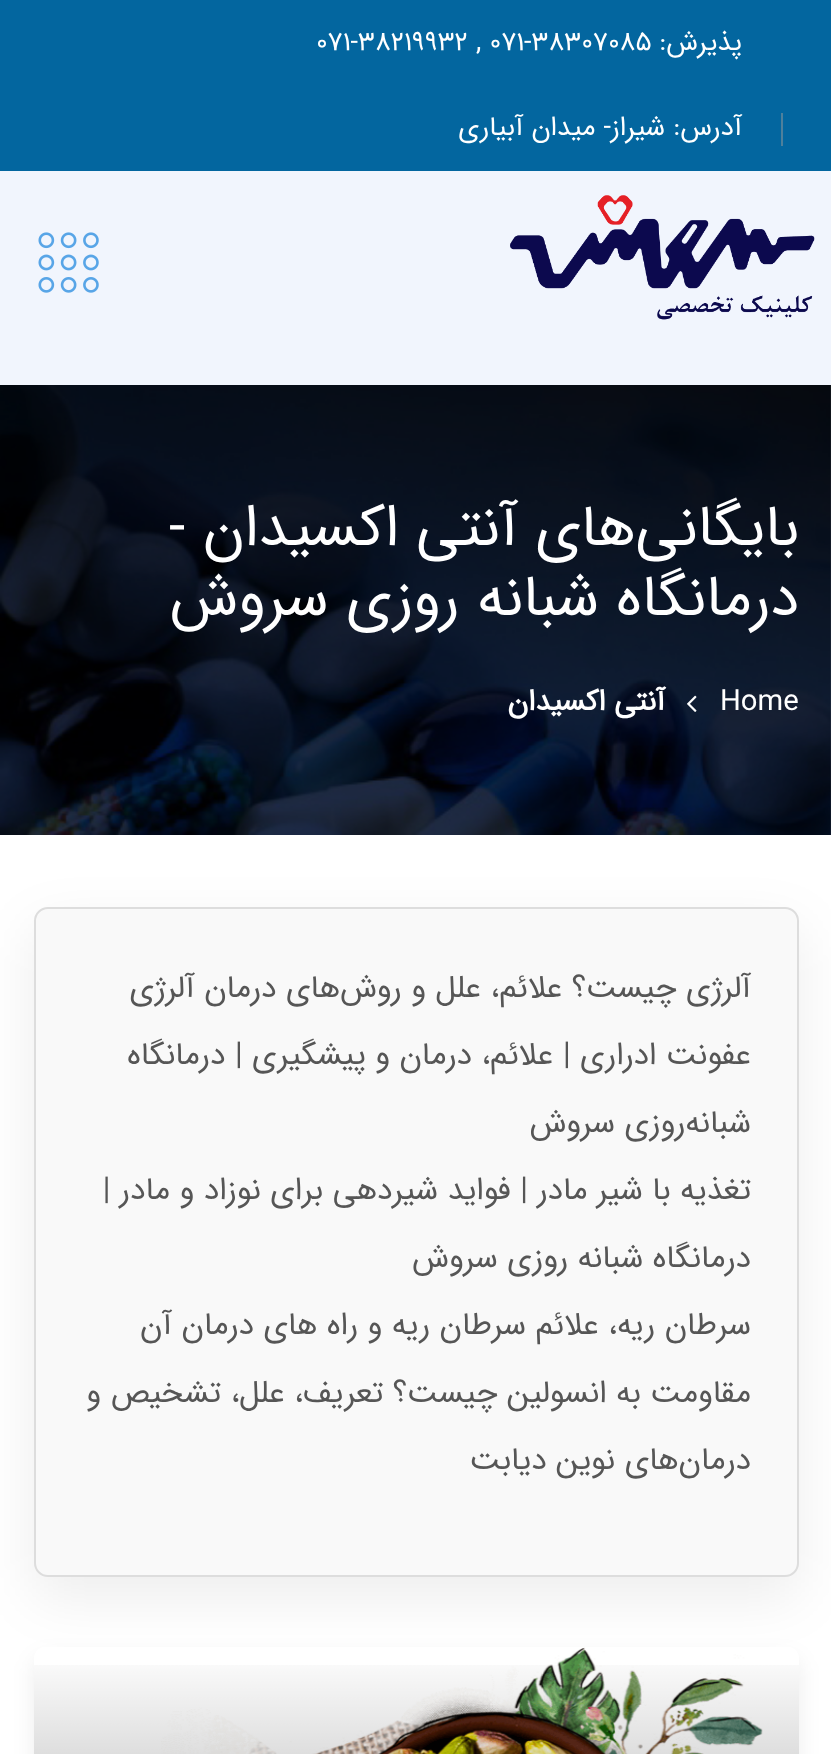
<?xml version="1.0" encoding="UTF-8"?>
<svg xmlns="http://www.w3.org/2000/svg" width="831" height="1754">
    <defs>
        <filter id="blur1" x="-50%" y="-200%" width="200%" height="500%"><feGaussianBlur stdDeviation="28"/></filter>
        <filter id="blur2" x="-50%" y="-200%" width="200%" height="500%"><feGaussianBlur stdDeviation="11"/></filter>
        <linearGradient id="g1" gradientUnits="userSpaceOnUse" x1="416" y1="1647" x2="416" y2="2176"><stop offset="0" stop-color="#000000" stop-opacity="0"/><stop offset="1" stop-color="#000000" stop-opacity="0.64"/></linearGradient>
    </defs>
    <rect width="100%" height="100%" fill="#FFFFFF"/>
    <rect x="0" y="0" width="831" height="171" fill="#03669F"/>
    <text x="742" y="50" font-family="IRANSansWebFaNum" font-size="27" direction="rtl" fill="#FFFFFF">پذیرش:</text>
    <text x="316" y="50" font-family="IRANSansWebFaNum" font-size="27" fill="#FFFFFF">071-38219932 , 071-38307085</text>
    <rect x="781" y="113" width="2" height="33" fill="#4E809C"/>
    <text x="742" y="135" font-family="IRANSansWebFaNum" font-size="27" direction="rtl" fill="#FFFFFF">آدرس: شیراز- میدان آبیاری</text>
    <rect x="0" y="171" width="831" height="214" fill="#F1F5FD"/>
    <image x="510" y="195" width="305" height="125" href="img_01.png"/>
    <image x="38" y="232" width="61" height="61" href="img_02.png"/>
    <image x="0" y="385" width="831" height="450" href="img_03.png"/>
    <text font-family="IRANSansWebFaNum" font-size="58.5" direction="rtl" fill="#FFFFFF">
        <tspan x="799" y="545">بایگانی‌های آنتی اکسیدان -</tspan>
        <tspan x="799" y="615">درمانگاه شبانه روزی سروش</tspan>
    </text>
    <text x="720" y="710" font-family="IRANSansWebFaNum" font-size="29.25" fill="#FFFFFF">Home</text>
    <image x="687" y="695" width="10" height="17" href="img_04.png"/>
    <text x="665" y="710" font-family="IRANSansWebFaNum" font-size="29.25" font-weight="700" direction="rtl" fill="#FFFFFF">آنتی اکسیدان</text>
    <rect x="34" y="927" width="765" height="671" rx="14" fill="#000000" fill-opacity="0.07" filter="url(#blur1)"/>
    <rect x="35" y="908" width="763" height="668" rx="13" fill="#F9F9F9" stroke="#DDDDDD" stroke-width="2"/>
    <text x="751" y="997" font-family="IRANSansWebFaNum" font-size="31.5" direction="rtl" fill="#565656">آلرژی چیست؟ علائم، علل و روش‌های درمان آلرژی</text>
    <text x="751" y="1064" font-family="IRANSansWebFaNum" font-size="31.5" direction="rtl" fill="#565656">عفونت ادراری | علائم، درمان و پیشگیری | درمانگاه</text>
    <text x="751" y="1132" font-family="IRANSansWebFaNum" font-size="31.5" direction="rtl" fill="#565656">شبانه‌روزی سروش</text>
    <text x="751" y="1199" font-family="IRANSansWebFaNum" font-size="31.5" direction="rtl" fill="#565656">تغذیه با شیر مادر | فواید شیردهی برای نوزاد و مادر |</text>
    <text x="751" y="1267" font-family="IRANSansWebFaNum" font-size="31.5" direction="rtl" fill="#565656">درمانگاه شبانه روزی سروش</text>
    <text x="751" y="1334" font-family="IRANSansWebFaNum" font-size="31.5" direction="rtl" fill="#565656">سرطان ریه، علائم سرطان ریه و راه های درمان آن</text>
    <text x="751" y="1402" font-family="IRANSansWebFaNum" font-size="31.5" direction="rtl" fill="#565656">مقاومت به انسولین چیست؟ تعریف، علل، تشخیص و</text>
    <text x="751" y="1469" font-family="IRANSansWebFaNum" font-size="31.5" direction="rtl" fill="#565656">درمان‌های نوین دیابت</text>
    <rect x="34" y="1658" width="765" height="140" rx="11" fill="#000000" fill-opacity="0.07" filter="url(#blur2)"/>
    <rect x="34" y="1647" width="765" height="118" rx="11" fill="#FFFFFF"/>
    <image x="161" y="1647" width="602" height="107" href="img_05.png"/>
    <rect x="34" y="1665" width="765" height="89" fill="url(#g1)"/>
</svg>
